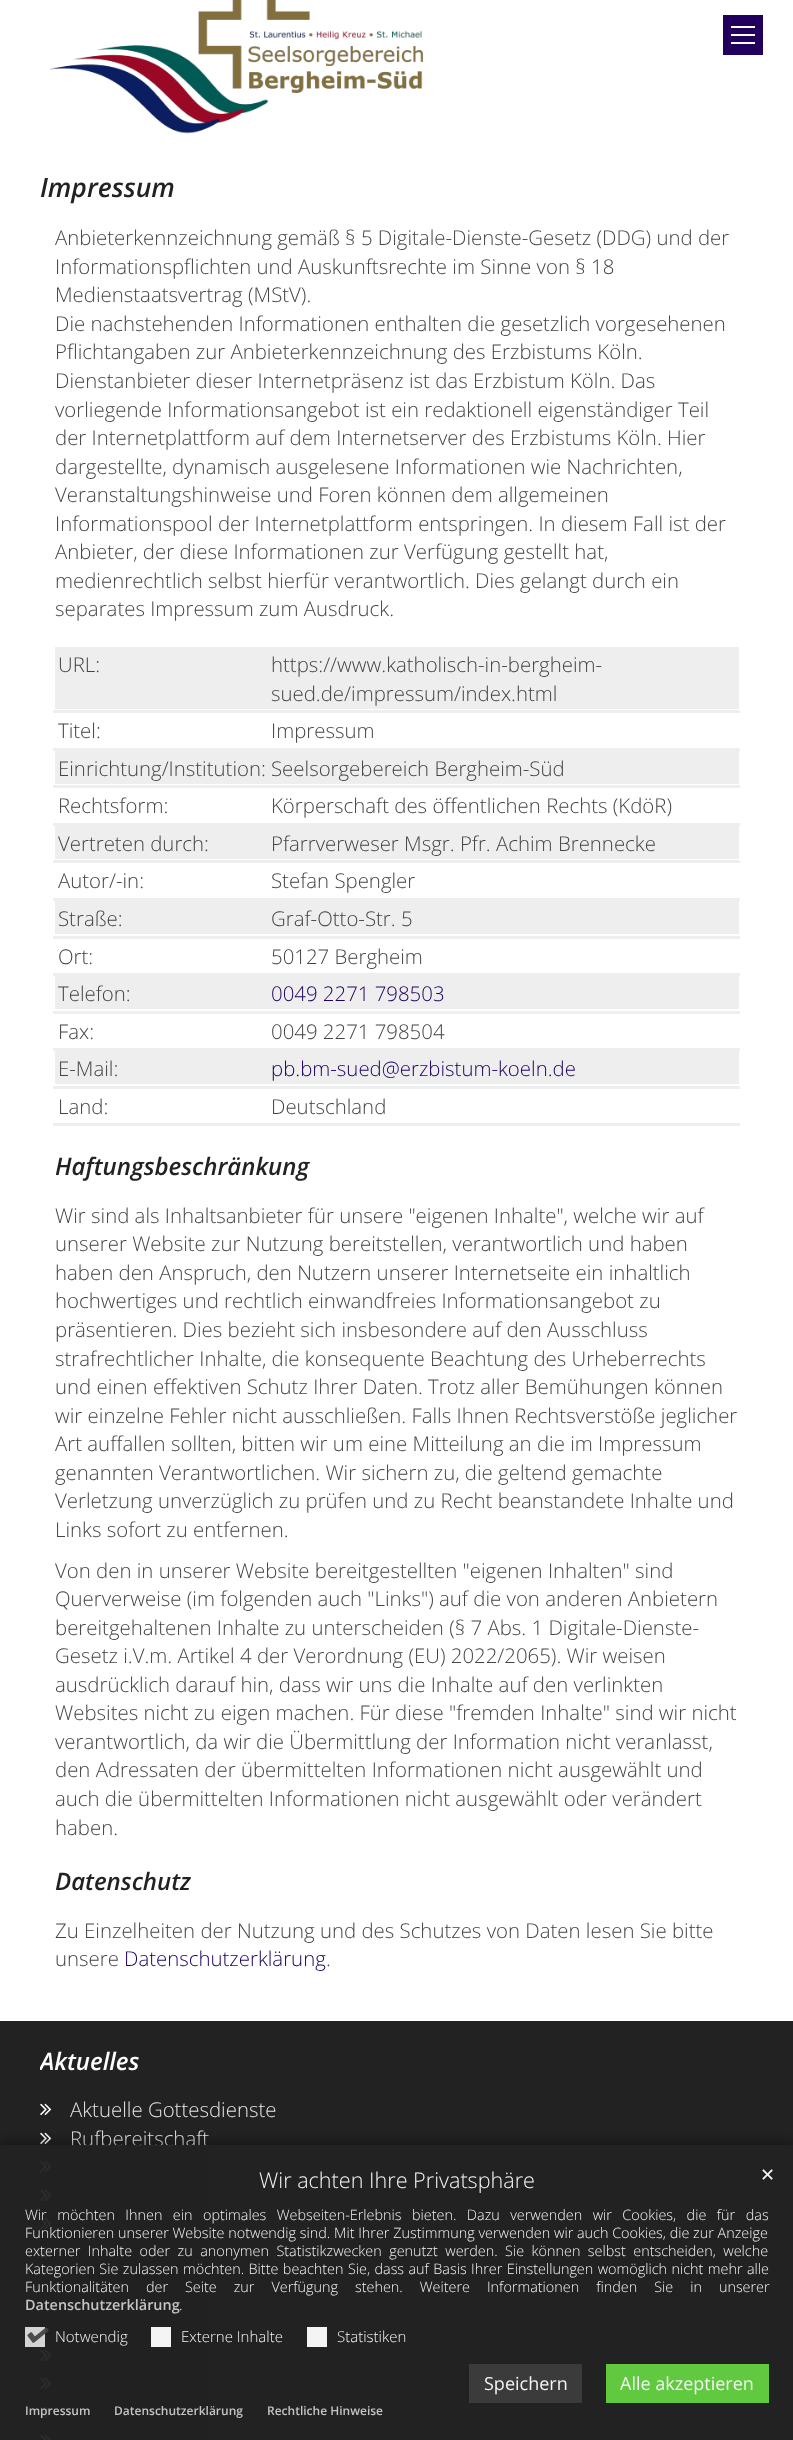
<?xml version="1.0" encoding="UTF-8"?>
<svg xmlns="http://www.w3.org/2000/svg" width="793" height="2440">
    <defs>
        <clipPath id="clip1"><rect x="40" y="2045" width="714" height="32"/></clipPath>
        <clipPath id="clip2"><rect x="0" y="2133" width="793" height="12"/></clipPath>
        <filter id="blur1" x="-50%" y="-200%" width="200%" height="500%"><feGaussianBlur stdDeviation="5"/></filter>
    </defs>
    <rect width="100%" height="100%" fill="#FFFFFF"/>
    <image x="50" y="0" width="373" height="134" href="img_01.png"/>
    <rect x="723" y="15" width="40" height="40" fill="#20005C"/>
    <rect x="731" y="34" width="24" height="2" fill="#FFFFFF"/>
    <rect x="731" y="26" width="24" height="2" fill="#FFFFFF"/>
    <rect x="731" y="42" width="24" height="2" fill="#FFFFFF"/>
    <text x="40" y="197" font-family="Open Sans" font-size="26.5" font-weight="600" font-style="italic" fill="#222222">Impressum</text>
    <text font-family="Open Sans" font-size="20.4" font-weight="300" fill="#444444">
        <tspan x="55" y="245">Anbieterkennzeichnung gemäß § 5 Digitale-Dienste-Gesetz (DDG) und der</tspan>
        <tspan x="55" y="274">Informationspflichten und Auskunftsrechte im Sinne von § 18</tspan>
        <tspan x="55" y="302">Medienstaatsvertrag (MStV).</tspan>
        <tspan x="55" y="331">Die nachstehenden Informationen enthalten die gesetzlich vorgesehenen</tspan>
        <tspan x="55" y="359">Pflichtangaben zur Anbieterkennzeichnung des Erzbistums Köln.</tspan>
        <tspan x="55" y="388">Dienstanbieter dieser Internetpräsenz ist das Erzbistum Köln. Das</tspan>
        <tspan x="55" y="417">vorliegende Informationsangebot ist ein redaktionell eigenständiger Teil</tspan>
        <tspan x="55" y="445">der Internetplattform auf dem Internetserver des Erzbistums Köln. Hier</tspan>
        <tspan x="55" y="474">dargestellte, dynamisch ausgelesene Informationen wie Nachrichten,</tspan>
        <tspan x="55" y="502">Veranstaltungshinweise und Foren können dem allgemeinen</tspan>
        <tspan x="55" y="531">Informationspool der Internetplattform entspringen. In diesem Fall ist der</tspan>
        <tspan x="55" y="559">Anbieter, der diese Informationen zur Verfügung gestellt hat,</tspan>
        <tspan x="55" y="588">medienrechtlich selbst hierfür verantwortlich. Dies gelangt durch ein</tspan>
        <tspan x="55" y="616">separates Impressum zum Ausdruck.</tspan>
    </text>
    <rect x="55" y="647" width="684" height="62" fill="#EEEEEE"/>
    <text x="58" y="672" font-family="Open Sans" font-size="20.4" font-weight="300" fill="#444444">URL:</text>
    <rect x="53" y="710" width="687" height="3" fill="#EEEEEE"/>
    <text font-family="Open Sans" font-size="20.4" font-weight="300" fill="#444444">
        <tspan x="271" y="672">https://www.katholisch-in-bergheim-</tspan>
        <tspan x="271" y="701">sued.de/impressum/index.html</tspan>
    </text>
    <text x="58" y="738" font-family="Open Sans" font-size="20.4" font-weight="300" fill="#444444">Titel:</text>
    <rect x="53" y="748" width="687" height="3" fill="#EEEEEE"/>
    <text x="271" y="738" font-family="Open Sans" font-size="20.4" font-weight="300" fill="#444444">Impressum</text>
    <rect x="55" y="751" width="684" height="33" fill="#EEEEEE"/>
    <text x="58" y="776" font-family="Open Sans" font-size="20.4" font-weight="300" fill="#444444">Einrichtung/Institution:</text>
    <rect x="53" y="785" width="687" height="3" fill="#EEEEEE"/>
    <text x="271" y="776" font-family="Open Sans" font-size="20.4" font-weight="300" fill="#444444">Seelsorgebereich Bergheim-Süd</text>
    <text x="58" y="813" font-family="Open Sans" font-size="20.4" font-weight="300" fill="#444444">Rechtsform:</text>
    <rect x="53" y="823" width="687" height="3" fill="#EEEEEE"/>
    <text x="271" y="813" font-family="Open Sans" font-size="20.4" font-weight="300" fill="#444444">Körperschaft des öffentlichen Rechts (KdöR)</text>
    <rect x="55" y="826" width="684" height="33" fill="#EEEEEE"/>
    <text x="58" y="851" font-family="Open Sans" font-size="20.4" font-weight="300" fill="#444444">Vertreten durch:</text>
    <rect x="53" y="860" width="687" height="3" fill="#EEEEEE"/>
    <text x="271" y="851" font-family="Open Sans" font-size="20.4" font-weight="300" fill="#444444">Pfarrverweser Msgr. Pfr. Achim Brennecke</text>
    <text x="58" y="888" font-family="Open Sans" font-size="20.4" font-weight="300" fill="#444444">Autor/-in:</text>
    <rect x="53" y="898" width="687" height="3" fill="#EEEEEE"/>
    <text x="271" y="888" font-family="Open Sans" font-size="20.4" font-weight="300" fill="#444444">Stefan Spengler</text>
    <rect x="55" y="901" width="684" height="33" fill="#EEEEEE"/>
    <text x="58" y="926" font-family="Open Sans" font-size="20.4" font-weight="300" fill="#444444">Straße:</text>
    <rect x="53" y="936" width="687" height="3" fill="#EEEEEE"/>
    <text x="271" y="926" font-family="Open Sans" font-size="20.4" font-weight="300" fill="#444444">Graf-Otto-Str. 5</text>
    <text x="58" y="964" font-family="Open Sans" font-size="20.4" font-weight="300" fill="#444444">Ort:</text>
    <rect x="53" y="973" width="687" height="3" fill="#EEEEEE"/>
    <text x="271" y="964" font-family="Open Sans" font-size="20.4" font-weight="300" fill="#444444">50127 Bergheim</text>
    <rect x="55" y="976" width="684" height="33" fill="#EEEEEE"/>
    <text x="58" y="1001" font-family="Open Sans" font-size="20.4" font-weight="300" fill="#444444">Telefon:</text>
    <rect x="53" y="1011" width="687" height="3" fill="#EEEEEE"/>
    <text x="271" y="1001" font-family="Open Sans" font-size="20.4" font-weight="300" fill="#20005C">0049 2271 798503</text>
    <text x="58" y="1039" font-family="Open Sans" font-size="20.4" font-weight="300" fill="#444444">Fax:</text>
    <rect x="53" y="1048" width="687" height="3" fill="#EEEEEE"/>
    <text x="271" y="1039" font-family="Open Sans" font-size="20.4" font-weight="300" fill="#444444">0049 2271 798504</text>
    <rect x="55" y="1051" width="684" height="33" fill="#EEEEEE"/>
    <text x="58" y="1076" font-family="Open Sans" font-size="20.4" font-weight="300" fill="#444444">E-Mail:</text>
    <rect x="53" y="1086" width="687" height="3" fill="#EEEEEE"/>
    <text x="271" y="1076" font-family="Open Sans" font-size="20.4" font-weight="300" fill="#20005C">pb.bm-sued@erzbistum-koeln.de</text>
    <text x="58" y="1114" font-family="Open Sans" font-size="20.4" font-weight="300" fill="#444444">Land:</text>
    <rect x="53" y="1123" width="687" height="3" fill="#EEEEEE"/>
    <text x="271" y="1114" font-family="Open Sans" font-size="20.4" font-weight="300" fill="#444444">Deutschland</text>
    <text x="55" y="1175" font-family="Open Sans" font-size="24" font-weight="600" font-style="italic" fill="#222222">Haftungsbeschränkung</text>
    <text font-family="Open Sans" font-size="20.4" font-weight="300" fill="#444444">
        <tspan x="55" y="1223">Wir sind als Inhaltsanbieter für unsere "eigenen Inhalte", welche wir auf</tspan>
        <tspan x="55" y="1251">unserer Website zur Nutzung bereitstellen, verantwortlich und haben</tspan>
        <tspan x="55" y="1280">haben den Anspruch, den Nutzern unserer Internetseite ein inhaltlich</tspan>
        <tspan x="55" y="1308">hochwertiges und rechtlich einwandfreies Informationsangebot zu</tspan>
        <tspan x="55" y="1337">präsentieren. Dies bezieht sich insbesondere auf den Ausschluss</tspan>
        <tspan x="55" y="1366">strafrechtlicher Inhalte, die konsequente Beachtung des Urheberrechts</tspan>
        <tspan x="55" y="1394">und einen effektiven Schutz Ihrer Daten. Trotz aller Bemühungen können</tspan>
        <tspan x="55" y="1423">wir einzelne Fehler nicht ausschließen. Falls Ihnen Rechtsverstöße jeglicher</tspan>
        <tspan x="55" y="1451">Art auffallen sollten, bitten wir um eine Mitteilung an die im Impressum</tspan>
        <tspan x="55" y="1480">genannten Verantwortlichen. Wir sichern zu, die geltend gemachte</tspan>
        <tspan x="55" y="1508">Verletzung unverzüglich zu prüfen und zu Recht beanstandete Inhalte und</tspan>
        <tspan x="55" y="1537">Links sofort zu entfernen.</tspan>
    </text>
    <text font-family="Open Sans" font-size="20.4" font-weight="300" fill="#444444">
        <tspan x="55" y="1578">Von den in unserer Website bereitgestellten "eigenen Inhalten" sind</tspan>
        <tspan x="55" y="1606">Querverweise (im folgenden auch "Links") auf die von anderen Anbietern</tspan>
        <tspan x="55" y="1635">bereitgehaltenen Inhalte zu unterscheiden (§ 7 Abs. 1 Digitale-Dienste-</tspan>
        <tspan x="55" y="1663">Gesetz i.V.m. Artikel 4 der Verordnung (EU) 2022/2065). Wir weisen</tspan>
        <tspan x="55" y="1692">ausdrücklich darauf hin, dass wir uns die Inhalte auf den verlinkten</tspan>
        <tspan x="55" y="1720">Websites nicht zu eigen machen. Für diese "fremden Inhalte" sind wir nicht</tspan>
        <tspan x="55" y="1749">verantwortlich, da wir die Übermittlung der Information nicht veranlasst,</tspan>
        <tspan x="55" y="1777">den Adressaten der übermittelten Informationen nicht ausgewählt und</tspan>
        <tspan x="55" y="1806">auch die übermittelten Informationen nicht ausgewählt oder verändert</tspan>
        <tspan x="55" y="1835">haben.</tspan>
    </text>
    <text x="55" y="1890" font-family="Open Sans" font-size="24" font-weight="600" font-style="italic" fill="#222222">Datenschutz</text>
    <text font-family="Open Sans" font-size="20.4" font-weight="300" fill="#444444">
        <tspan x="55" y="1938">Zu Einzelheiten der Nutzung und des Schutzes von Daten lesen Sie bitte</tspan>
        <tspan x="55" y="1966">unsere</tspan>
    </text>
    <text x="124" y="1966" font-family="Open Sans" font-size="20.4" font-weight="300" fill="#20005C">Datenschutzerklärung</text>
    <text x="326" y="1966" font-family="Open Sans" font-size="20.4" font-weight="300" fill="#444444">.</text>
    <rect x="0" y="2021" width="793" height="419" fill="#222222"/>
    <g clip-path="url(#clip1)">
        <text x="40" y="2070" font-family="Open Sans" font-size="24" font-weight="600" font-style="italic" fill="#FFFFFF">Aktuelles</text>
    </g>
    <image x="40" y="2103" width="12" height="13" href="img_02.png"/>
    <text x="70" y="2117" font-family="Open Sans" font-size="20.4" font-weight="300" fill="#E4E4E4">Aktuelle Gottesdienste</text>
    <image x="40" y="2132" width="12" height="13" href="img_02.png"/>
    <text x="70" y="2146" font-family="Open Sans" font-size="20.4" font-weight="300" fill="#E4E4E4">Rufbereitschaft</text>
    <image x="40" y="2160" width="12" height="13" href="img_02.png"/>
    <image x="40" y="2189" width="12" height="13" href="img_02.png"/>
    <image x="40" y="2217" width="12" height="13" href="img_02.png"/>
    <image x="40" y="2246" width="12" height="13" href="img_02.png"/>
    <image x="40" y="2349" width="12" height="13" href="img_02.png"/>
    <image x="40" y="2377" width="12" height="13" href="img_02.png"/>
    <image x="40" y="2406" width="12" height="13" href="img_02.png"/>
    <image x="40" y="2434" width="11" height="6" href="img_03.png"/>
    <g clip-path="url(#clip2)">
        <rect x="-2" y="2140" width="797" height="299" fill="#000000" fill-opacity="0.28" filter="url(#blur1)"/>
    </g>
    <rect x="40" y="2145" width="169" height="295" fill="#222222" fill-opacity="0.95"/>
    <text x="259" y="2188" font-family="Open Sans" font-size="21.6" font-weight="300" fill="#F4F4F4">Wir achten Ihre Privatsphäre</text>
    <text x="760" y="2181" font-family="DejaVu Sans" font-size="18" fill="#F4F4F4">✕</text>
    <text font-family="Open Sans" font-size="14.4" font-weight="300" fill="#F4F4F4">
        <tspan x="25" y="2220" word-spacing="6.75">Wir möchten Ihnen ein optimales Webseiten-Erlebnis bieten. Dazu verwenden wir Cookies, die für das</tspan>
        <tspan x="25" y="2238">Funktionieren unserer Website notwendig sind. Mit Ihrer Zustimmung verwenden wir auch Cookies, die zur Anzeige</tspan>
        <tspan x="25" y="2256" word-spacing="3.75">externer Inhalte oder zu anonymen Statistikzwecken genutzt werden. Sie können selbst entscheiden, welche</tspan>
        <tspan x="25" y="2274" word-spacing="0.7">Kategorien Sie zulassen möchten. Bitte beachten Sie, dass auf Basis Ihrer Einstellungen womöglich nicht mehr alle</tspan>
        <tspan x="25" y="2292" word-spacing="13.25">Funktionalitäten der Seite zur Verfügung stehen. Weitere Informationen finden Sie in unserer</tspan>
    </text>
    <text x="25" y="2310" font-family="Open Sans" font-size="14.4" font-weight="600" fill="#C4C4C4">Datenschutzerklärung</text>
    <text x="179" y="2310" font-family="Open Sans" font-size="14.4" font-weight="300" fill="#F4F4F4">.</text>
    <rect x="25" y="2327" width="20" height="20" fill="#D4D4D4"/>
    <image x="27" y="2327" width="22" height="16" href="img_04.png"/>
    <text x="55" y="2342" font-family="Open Sans" font-size="15" font-weight="300" fill="#F4F4F4">Notwendig</text>
    <rect x="151" y="2327" width="20" height="20" fill="#F4F4F4"/>
    <text x="181" y="2342" font-family="Open Sans" font-size="15" font-weight="300" fill="#F4F4F4">Externe Inhalte</text>
    <rect x="307" y="2327" width="20" height="20" fill="#F4F4F4"/>
    <text x="337" y="2342" font-family="Open Sans" font-size="15" font-weight="300" fill="#F4F4F4">Statistiken</text>
    <rect x="469" y="2364" width="113" height="39" fill="#3B3B3B"/>
    <text x="484" y="2390" font-family="Open Sans" font-size="18" fill="#F4F4F4">Speichern</text>
    <rect x="606" y="2364" width="163" height="39" fill="#61C93F"/>
    <text x="620" y="2390" font-family="Open Sans" font-size="18" fill="#F4F4F4">Alle akzeptieren</text>
    <text x="25" y="2415" font-family="Open Sans" font-size="12" font-weight="600" fill="#C4C4C4">Impressum</text>
    <text x="114" y="2415" font-family="Open Sans" font-size="12" font-weight="600" fill="#C4C4C4">Datenschutzerklärung</text>
    <text x="267" y="2415" font-family="Open Sans" font-size="12" font-weight="600" fill="#C4C4C4">Rechtliche Hinweise</text>
</svg>
